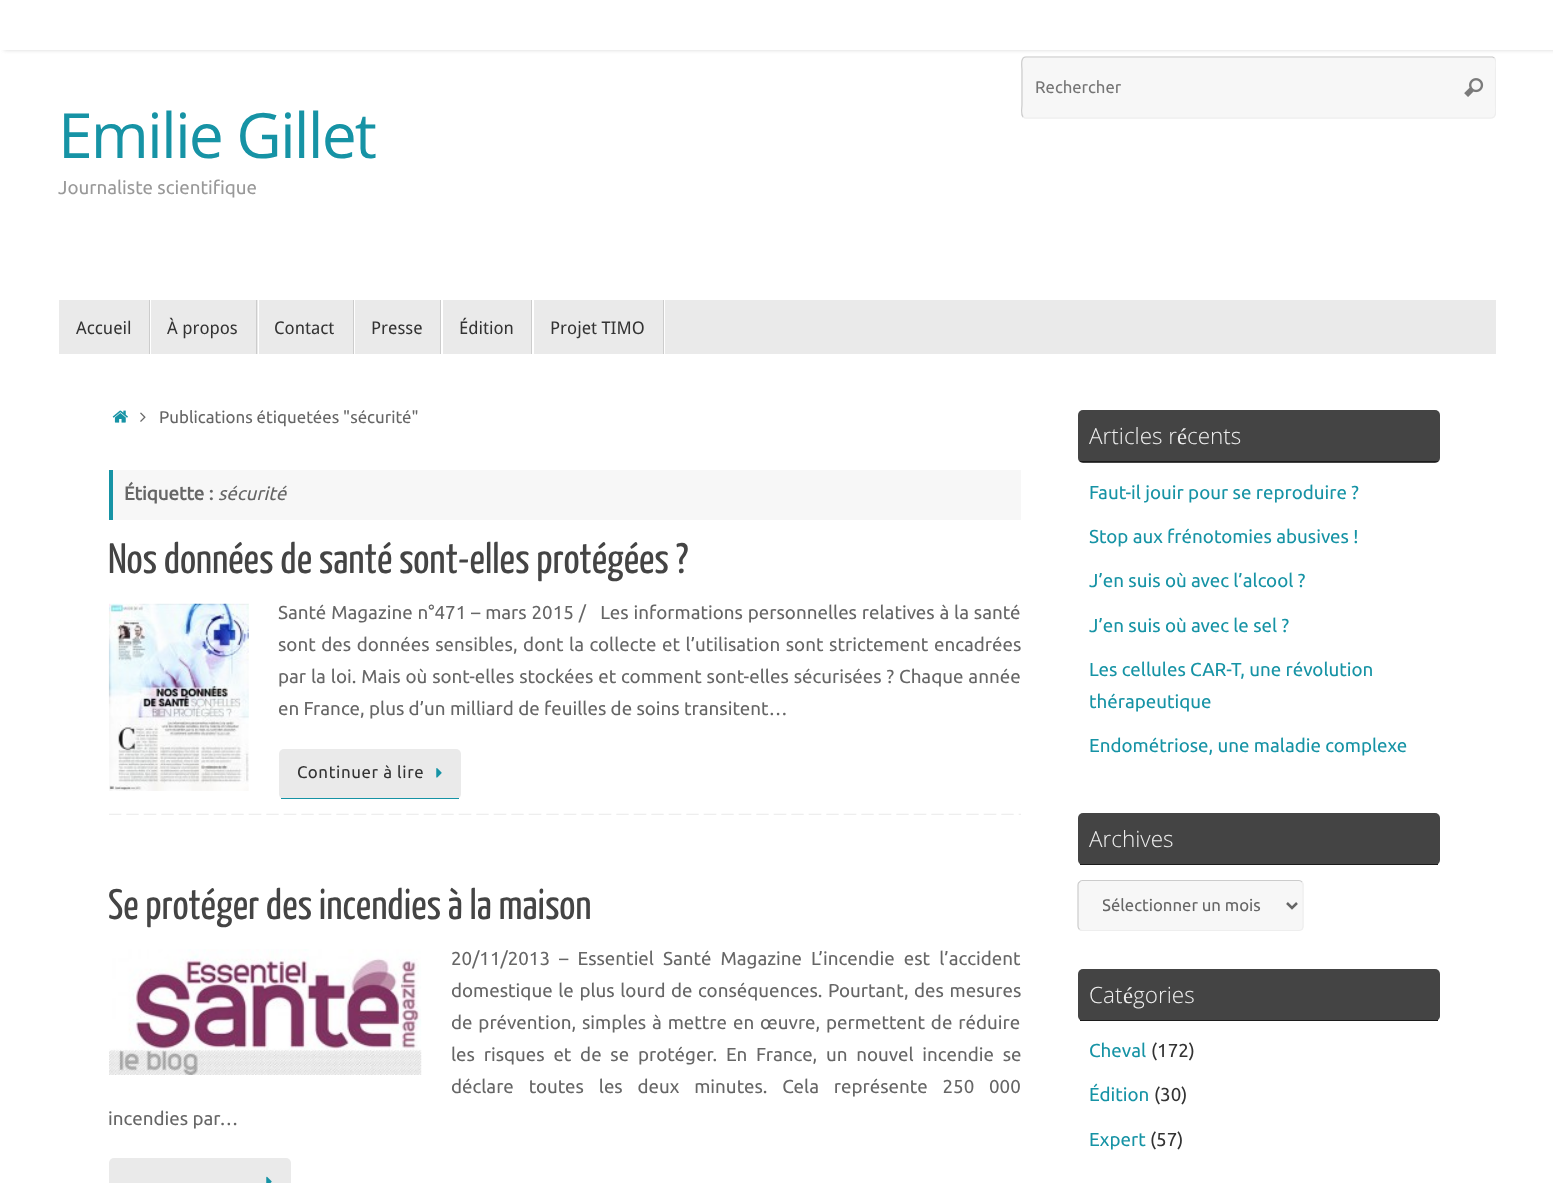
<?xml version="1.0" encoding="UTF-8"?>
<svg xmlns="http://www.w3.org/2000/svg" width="1553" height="1183">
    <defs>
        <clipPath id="clip1"><rect x="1" y="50" width="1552" height="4"/></clipPath>
        <filter id="blur1" x="-50%" y="-200%" width="200%" height="500%"><feGaussianBlur stdDeviation="2"/></filter>
        <clipPath id="clip2"><rect x="1021" y="56" width="475" height="63"/></clipPath>
        <clipPath id="clip3"><rect x="1103" y="894" width="161" height="24"/></clipPath>
    </defs>
    <rect width="100%" height="100%" fill="#FFFFFF"/>
    <g clip-path="url(#clip1)">
        <rect x="4" y="0" width="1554" height="50" fill="#D7D7D7" filter="url(#blur1)"/>
    </g>
    <rect x="1021" y="56" width="475" height="63" rx="5" fill="#F7F7F7"/>
    <g clip-path="url(#clip2)">
        <path d="M 1494.5 58 C 1497 61 1495.5 68 1495.5 70 V 105 C 1495.5 108 1497.5 118 1491 118 H 1025 L 1023 117" fill="none" stroke="#EEEEEE" stroke-width="1.2"/>
    </g>
    <path d="M 1023 117 C 1020.5 114 1022 107 1022 105 V 70 C 1022 67 1020 57 1026 57 H 1492.5 L 1494.5 58" fill="none" stroke="#CCCCCC" stroke-width="1.2"/>
    <text x="1035" y="93" font-family="Ubuntu" font-size="16.75" fill="#757575">Rechercher</text>
    <image x="1464" y="78" width="20" height="19" href="img_01.png"/>
    <text x="58" y="158" font-family="Open Sans" font-size="62.5" letter-spacing="-1.9" fill="#1693A5">Emilie Gillet</text>
    <text x="58" y="194" font-family="Ubuntu" font-size="18.75" fill="#999999">Journaliste scientifique</text>
    <rect x="59" y="300" width="1437" height="54" fill="#EAEAEA"/>
    <path d="M 60 354 H 151 V 300 H 150 V 354 Z" fill="#FFFFFF"/>
    <rect x="149" y="300" width="1" height="54" fill="#CCCCCC"/>
    <text x="76" y="334" font-family="Droid Sans" font-size="17.5" fill="#333333">Accueil</text>
    <path d="M 151 354 H 259 V 300 H 258 V 354 Z" fill="#FFFFFF"/>
    <rect x="256" y="300" width="1" height="54" fill="#CCCCCC"/>
    <text x="167" y="334" font-family="Droid Sans" font-size="17.5" fill="#333333">À propos</text>
    <path d="M 259 354 H 355 V 300 H 354 V 354 Z" fill="#FFFFFF"/>
    <rect x="353" y="300" width="1" height="54" fill="#CCCCCC"/>
    <text x="274" y="334" font-family="Droid Sans" font-size="17.5" fill="#333333">Contact</text>
    <path d="M 355 354 H 443 V 300 H 441 V 354 Z" fill="#FFFFFF"/>
    <rect x="440" y="300" width="1" height="54" fill="#CCCCCC"/>
    <text x="371" y="334" font-family="Droid Sans" font-size="17.5" fill="#333333">Presse</text>
    <path d="M 443 354 H 534 V 300 H 532 V 354 Z" fill="#FFFFFF"/>
    <rect x="531" y="300" width="1" height="54" fill="#CCCCCC"/>
    <text x="459" y="334" font-family="Droid Sans" font-size="17.5" fill="#333333">Édition</text>
    <path d="M 534 354 H 665 V 300 H 664 V 354 Z" fill="#FFFFFF"/>
    <rect x="663" y="300" width="1" height="54" fill="#CCCCCC"/>
    <text x="550" y="334" font-family="Droid Sans" font-size="17.5" fill="#333333">Projet TIMO</text>
    <image x="112" y="410" width="16" height="13" href="img_02.png"/>
    <image x="140" y="412" width="6" height="10" href="img_03.png"/>
    <text x="159" y="423" font-family="Ubuntu" font-size="16.9" fill="#666666">Publications étiquetées "sécurité"</text>
    <rect x="113" y="470" width="908" height="50" fill="#F7F7F7"/>
    <rect x="109" y="470" width="4" height="50" fill="#1693A5"/>
    <text x="124" y="500" font-family="Ubuntu" font-size="18.75" font-weight="700" fill="#666666">Étiquette :</text>
    <text x="218" y="500" font-family="Ubuntu" font-size="18.75" font-style="italic" fill="#666666">sécurité</text>
    <text x="108" y="573" font-family="Yanone Kaffeesatz" font-size="42.5" fill="#444444">Nos données de santé sont-elles protégées ?</text>
    <image x="108" y="603" width="141" height="188" href="img_04.png"/>
    <text font-family="Ubuntu" font-size="18.75" fill="#666666" xml:space="preserve"><tspan x="278" y="619" word-spacing="0.5">Santé Magazine n°471 – mars 2015 /   Les informations personnelles relatives à la santé</tspan><tspan x="278" y="651" word-spacing="1.25">sont des données sensibles, dont la collecte et l’utilisation sont strictement encadrées</tspan><tspan x="278" y="683" word-spacing="0.6">par la loi. Mais où sont-elles stockées et comment sont-elles sécurisées ? Chaque année</tspan><tspan x="278" y="715">en France, plus d’un milliard de feuilles de soins transitent…</tspan></text>
    <rect x="279" y="749" width="182" height="50" rx="5" fill="#EAEAEA"/>
    <rect x="281" y="798" width="178" height="1" fill="#1693A5"/>
    <text x="297" y="778" font-family="Ubuntu" font-size="16.9" letter-spacing="0.6" fill="#333333">Continuer à lire</text>
    <image x="436" y="768" width="6" height="10" href="img_05.png"/>
    <image x="109" y="813" width="912" height="2" href="img_06.png"/>
    <text x="108" y="919" font-family="Yanone Kaffeesatz" font-size="42.5" fill="#444444">Se protéger des incendies à la maison</text>
    <image x="109" y="949" width="313" height="126" href="img_07.png"/>
    <text font-family="Ubuntu" font-size="18.75" fill="#666666">
        <tspan x="451" y="965" word-spacing="4.75">20/11/2013 – Essentiel Santé Magazine L’incendie est l’accident</tspan>
        <tspan x="451" y="997" word-spacing="1.25">domestique le plus lourd de conséquences. Pourtant, des mesures</tspan>
        <tspan x="451" y="1029" word-spacing="1.5">de prévention, simples à mettre en œuvre, permettent de réduire</tspan>
        <tspan x="451" y="1061" word-spacing="4.4">les risques et de se protéger. En France, un nouvel incendie se</tspan>
        <tspan x="451" y="1093" word-spacing="10.5">déclare toutes les deux minutes. Cela représente 250 000</tspan>
    </text>
    <text x="108" y="1125" font-family="Ubuntu" font-size="18.75" fill="#666666">incendies par…</text>
    <rect x="109" y="1158" width="182" height="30" rx="5" fill="#EAEAEA"/>
    <image x="266" y="1176" width="6" height="7" href="img_08.png"/>
    <rect x="1078" y="410" width="362" height="53" rx="5" fill="#444444"/>
    <rect x="1080" y="461" width="358" height="1" fill="#1C1C1C"/>
    <text x="1089" y="444" font-family="Open Sans" font-size="22.5" font-weight="300" fill="#EEEEEE">Articles r</text>
    <text x="1177" y="444" font-family="Liberation Serif" font-size="22.5" fill="#EEEEEE">é</text>
    <text x="1187" y="444" font-family="Open Sans" font-size="22.5" font-weight="300" fill="#EEEEEE">cents</text>
    <text x="1089" y="499" font-family="Ubuntu" font-size="18.75" fill="#1693A5">Faut-il jouir pour se reproduire ?</text>
    <text x="1089" y="543" font-family="Ubuntu" font-size="18.75" fill="#1693A5">Stop aux frénotomies abusives !</text>
    <text x="1089" y="587" font-family="Ubuntu" font-size="18.75" fill="#1693A5">J’en suis où avec l’alcool ?</text>
    <text x="1089" y="632" font-family="Ubuntu" font-size="18.75" fill="#1693A5">J’en suis où avec le sel ?</text>
    <text font-family="Ubuntu" font-size="18.75" fill="#1693A5">
        <tspan x="1089" y="676">Les cellules CAR-T, une révolution</tspan>
        <tspan x="1089" y="708">thérapeutique</tspan>
    </text>
    <text x="1089" y="752" font-family="Ubuntu" font-size="18.75" fill="#1693A5">Endométriose, une maladie complexe</text>
    <rect x="1078" y="813" width="362" height="52" rx="5" fill="#444444"/>
    <rect x="1080" y="864" width="358" height="1" fill="#1C1C1C"/>
    <text x="1089" y="847" font-family="Open Sans" font-size="22.5" font-weight="300" fill="#EEEEEE">Archives</text>
    <rect x="1078" y="880" width="226" height="51" rx="5" fill="#F7F7F7"/>
    <path d="M 1302 882 C 1302.5 882.5 1303 884 1303 885 V 926 C 1303 927.5 1302.5 928.5 1302 929.5 C 1301 930 1300 930.5 1299 930.5 H 1082.5 C 1081.5 930.5 1080 930 1079.5 929.5" fill="none" stroke="#EEEEEE" stroke-width="1.2"/>
    <path d="M 1079.5 929.5 C 1078.5 928.5 1078 927.5 1078 926 V 885 C 1078 884 1078.5 882.5 1079.5 882 C 1080 881 1081.5 880.5 1082.5 880.5 H 1299 C 1300 880.5 1301 881 1302 882" fill="none" stroke="#CCCCCC" stroke-width="1.2"/>
    <path d="M 1287 903 L 1292 908 L 1297 903" fill="none" stroke="#666666" stroke-width="2.5"/>
    <g clip-path="url(#clip3)">
        <text x="1102" y="911" font-family="Ubuntu" font-size="16.75" fill="#666666">Sélectionner un mois</text>
    </g>
    <rect x="1078" y="969" width="362" height="52" rx="5" fill="#444444"/>
    <rect x="1080" y="1020" width="358" height="1" fill="#1C1C1C"/>
    <text x="1089" y="1003" font-family="Open Sans" font-size="22.5" font-weight="300" fill="#EEEEEE">Cat</text>
    <text x="1123" y="1003" font-family="Liberation Serif" font-size="22.5" fill="#EEEEEE">é</text>
    <text x="1133" y="1003" font-family="Open Sans" font-size="22.5" font-weight="300" fill="#EEEEEE">gories</text>
    <text x="1089" y="1057" font-family="Ubuntu" font-size="18.75" fill="#1693A5">Cheval</text>
    <text x="1151" y="1057" font-family="Ubuntu" font-size="18.75" fill="#333333">(172)</text>
    <text x="1089" y="1101" font-family="Ubuntu" font-size="18.75" fill="#1693A5">Édition</text>
    <text x="1154" y="1101" font-family="Ubuntu" font-size="18.75" fill="#333333">(30)</text>
    <text x="1089" y="1146" font-family="Ubuntu" font-size="18.75" fill="#1693A5">Expert</text>
    <text x="1150" y="1146" font-family="Ubuntu" font-size="18.75" fill="#333333">(57)</text>
</svg>
